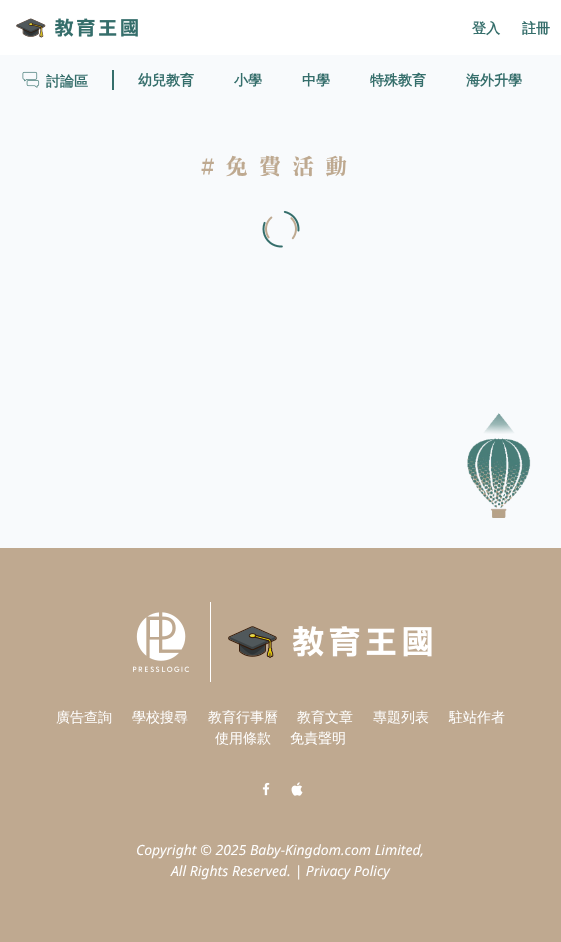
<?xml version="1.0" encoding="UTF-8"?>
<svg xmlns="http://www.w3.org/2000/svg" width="561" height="942">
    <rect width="100%" height="100%" fill="#F8FAFC"/>
    <rect x="0" y="0" width="561" height="55" fill="#FFFFFF"/>
    <image x="16" y="18" width="122" height="20" href="img_01.png"/>
    <text x="472" y="33" font-family="WenQuanYi Zen Hei" font-size="14" font-weight="700" fill="#356E6B">登入</text>
    <text x="522" y="33" font-family="WenQuanYi Zen Hei" font-size="14" font-weight="700" fill="#356E6B">註冊</text>
    <image x="22" y="71" width="18" height="17" href="img_02.png"/>
    <text x="46" y="86" font-family="WenQuanYi Zen Hei" font-size="14" font-weight="700" fill="#356E6B">討論區</text>
    <rect x="112" y="70" width="2" height="20" fill="#356E6B"/>
    <text x="138" y="85" font-family="WenQuanYi Zen Hei" font-size="14" font-weight="700" fill="#356E6B">幼兒教育</text>
    <text x="234" y="85" font-family="WenQuanYi Zen Hei" font-size="14" font-weight="700" fill="#356E6B">小學</text>
    <text x="302" y="85" font-family="WenQuanYi Zen Hei" font-size="14" font-weight="700" fill="#356E6B">中學</text>
    <text x="370" y="85" font-family="WenQuanYi Zen Hei" font-size="14" font-weight="700" fill="#356E6B">特殊教育</text>
    <text x="466" y="85" font-family="WenQuanYi Zen Hei" font-size="14" font-weight="700" fill="#356E6B">海外升學</text>
    <text x="201" y="174" font-family="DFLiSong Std" font-size="22.25" letter-spacing="11" fill="#BEA990">#免費活動</text>
    <image x="262" y="210" width="38" height="38" href="img_03.png"/>
    <image x="467" y="413" width="64" height="105" href="img_04.png"/>
    <rect x="0" y="548" width="561" height="394" fill="#BFA990"/>
    <rect x="210" y="602" width="1" height="80" fill="#FFFFFF"/>
    <image x="133" y="612" width="56" height="60" href="img_05.png"/>
    <image x="228" y="626" width="204" height="32" href="img_06.png"/>
    <text x="56" y="722" font-family="WenQuanYi Zen Hei" font-size="14" font-weight="500" fill="#FFFFFF">廣告查詢</text>
    <text x="132" y="722" font-family="WenQuanYi Zen Hei" font-size="14" font-weight="500" fill="#FFFFFF">學校搜尋</text>
    <text x="208" y="722" font-family="WenQuanYi Zen Hei" font-size="14" font-weight="500" fill="#FFFFFF">教育行事曆</text>
    <text x="297" y="722" font-family="WenQuanYi Zen Hei" font-size="14" font-weight="500" fill="#FFFFFF">教育文章</text>
    <text x="373" y="722" font-family="WenQuanYi Zen Hei" font-size="14" font-weight="500" fill="#FFFFFF">專題列表</text>
    <text x="449" y="722" font-family="WenQuanYi Zen Hei" font-size="14" font-weight="500" fill="#FFFFFF">駐站作者</text>
    <text x="215" y="743" font-family="WenQuanYi Zen Hei" font-size="14" font-weight="500" fill="#FFFFFF">使用條款</text>
    <text x="290" y="743" font-family="WenQuanYi Zen Hei" font-size="14" font-weight="500" fill="#FFFFFF">免責聲明</text>
    <image x="262" y="782" width="8" height="14" href="img_07.png"/>
    <image x="291" y="782" width="12" height="14" href="img_08.png"/>
    <text x="136" y="855" font-family="Noto Sans" font-size="14" font-style="italic" fill="#FFFFFF">Copyright © 2025 Baby-Kingdom.com Limited,</text>
    <text x="171" y="876" font-family="Noto Sans" font-size="14" font-style="italic" fill="#FFFFFF">All Rights Reserved. | Privacy Policy</text>
</svg>
